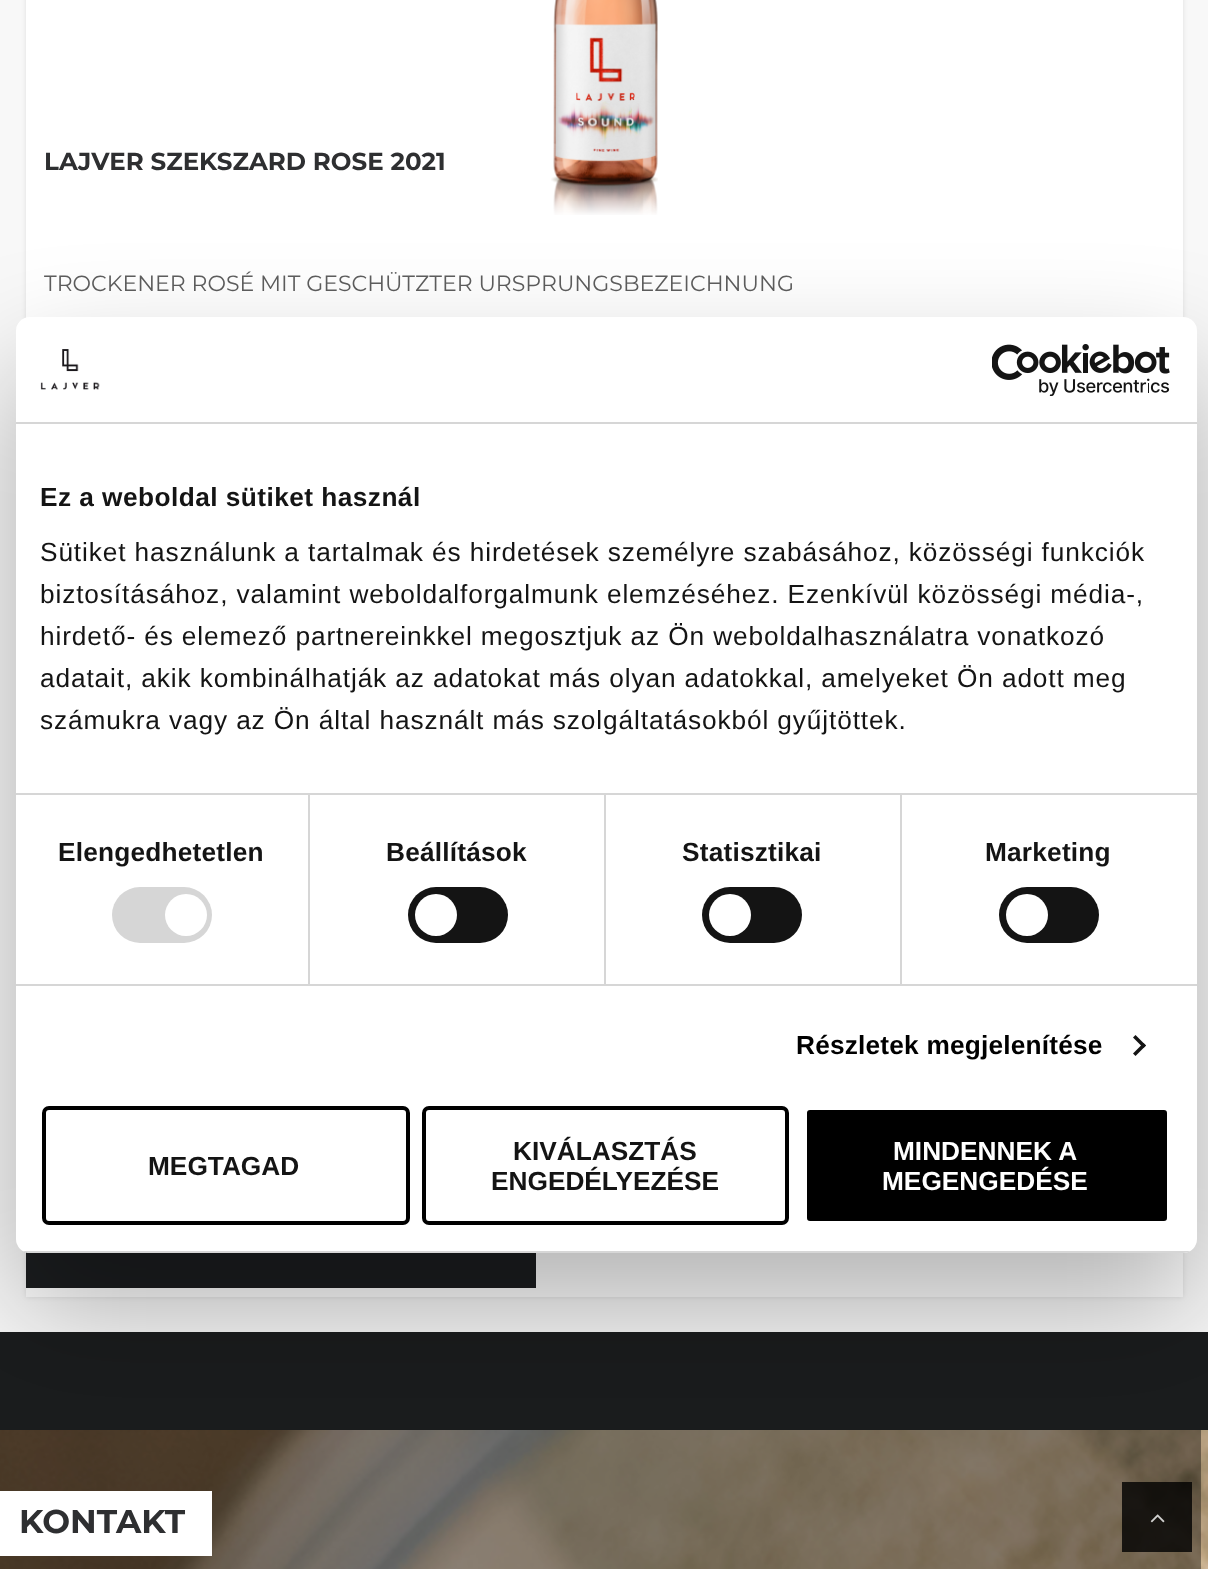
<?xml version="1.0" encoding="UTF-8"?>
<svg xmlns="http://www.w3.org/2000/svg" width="1208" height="1569">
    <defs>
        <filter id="blur1" x="-50%" y="-200%" width="200%" height="500%"><feGaussianBlur stdDeviation="2.5"/></filter>
        <filter id="blur2" x="-50%" y="-200%" width="200%" height="500%"><feGaussianBlur stdDeviation="59.5"/></filter>
        <clipPath id="clip1"><rect x="16" y="317" width="1181" height="936" rx="14"/></clipPath>
    </defs>
    <rect width="100%" height="100%" fill="#F8F8F8"/>
    <rect x="26" y="-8" width="1157" height="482" fill="#000000" fill-opacity="0.1" filter="url(#blur1)"/>
    <rect x="26" y="0" width="1157" height="318" fill="#FFFFFF"/>
    <image x="551" y="0" width="107" height="215" href="img_01.png"/>
    <text x="44" y="170" font-family="Montserrat" font-size="24.5" font-weight="700" fill="#2E2F31">LAJVER SZEKSZARD ROSE 2021</text>
    <text x="44" y="291" font-family="Montserrat" font-size="22.05" fill="#5D5D5D">TROCKENER ROSÉ MIT GESCHÜTZTER URSPRUNGSBEZEICHNUNG</text>
    <rect x="26" y="544" width="1157" height="753" fill="#000000" fill-opacity="0.1" filter="url(#blur1)"/>
    <rect x="26" y="1253" width="1157" height="44" fill="#FFFFFF"/>
    <rect x="26" y="1252" width="510" height="36" fill="#1B1D1F"/>
    <rect x="0" y="1332" width="1208" height="98" fill="#1A1C1D"/>
    <image x="0" y="1430" width="1208" height="139" href="img_02.png"/>
    <rect x="0" y="1491" width="212" height="65" fill="#FFFFFF"/>
    <text x="19" y="1533" font-family="Montserrat" font-size="33" font-weight="700" fill="#2E2F31">KONTAKT</text>
    <rect x="1122" y="1482" width="70" height="70" fill="#000000" fill-opacity="0.8"/>
    <rect x="16" y="373" width="1181" height="936" rx="14" fill="#000000" fill-opacity="0.3" filter="url(#blur2)"/>
    <rect x="16" y="317" width="1181" height="936" rx="14" fill="#FFFFFF"/>
    <rect x="16" y="422" width="1181" height="2" fill="#D6D6D6"/>
    <image x="40" y="349" width="60" height="41" href="img_03.png"/>
    <image x="992" y="344" width="178" height="52" href="img_04.png"/>
    <rect x="16" y="793" width="1181" height="2" fill="#D6D6D6"/>
    <text x="40" y="506" font-family="Liberation Sans" font-size="26.25" font-weight="700" letter-spacing="0.45" fill="#141414">Ez a weboldal sütiket használ</text>
    <text font-family="Liberation Sans" font-size="26.25" letter-spacing="0.88" fill="#141414">
        <tspan x="40" y="561">Sütiket használunk a tartalmak és hirdetések személyre szabásához, közösségi funkciók</tspan>
        <tspan x="40" y="603">biztosításához, valamint weboldalforgalmunk elemzéséhez. Ezenkívül közösségi média-,</tspan>
        <tspan x="40" y="645">hirdető- és elemező partnereinkkel megosztjuk az Ön weboldalhasználatra vonatkozó</tspan>
        <tspan x="40" y="687">adatait, akik kombinálhatják az adatokat más olyan adatokkal, amelyeket Ön adott meg</tspan>
        <tspan x="40" y="729">számukra vagy az Ön által használt más szolgáltatásokból gyűjtöttek.</tspan>
    </text>
    <rect x="16" y="984" width="1181" height="2" fill="#D6D6D6"/>
    <rect x="308" y="795" width="2" height="189" fill="#D6D6D6"/>
    <text x="58" y="861" font-family="Liberation Sans" font-size="26.25" font-weight="700" letter-spacing="0.2" fill="#141414">Elengedhetetlen</text>
    <rect x="112" y="887" width="100" height="56" rx="28" fill="#D6D6D6"/>
    <circle cx="186" cy="915" r="21" fill="#FFFFFF"/>
    <rect x="604" y="795" width="2" height="189" fill="#D6D6D6"/>
    <text x="386" y="861" font-family="Liberation Sans" font-size="26.25" font-weight="700" letter-spacing="0.2" fill="#141414">Beállítások</text>
    <rect x="408" y="887" width="100" height="56" rx="28" fill="#141414"/>
    <circle cx="436" cy="915" r="21" fill="#FFFFFF"/>
    <rect x="900" y="795" width="2" height="189" fill="#D6D6D6"/>
    <text x="682" y="861" font-family="Liberation Sans" font-size="26.25" font-weight="700" letter-spacing="0.2" fill="#141414">Statisztikai</text>
    <rect x="702" y="887" width="100" height="56" rx="28" fill="#141414"/>
    <circle cx="730" cy="915" r="21" fill="#FFFFFF"/>
    <text x="985" y="861" font-family="Liberation Sans" font-size="26.25" font-weight="700" letter-spacing="0.2" fill="#141414">Marketing</text>
    <rect x="999" y="887" width="100" height="56" rx="28" fill="#141414"/>
    <circle cx="1027" cy="915" r="21" fill="#FFFFFF"/>
    <text x="796" y="1054" font-family="Liberation Sans" font-size="26.25" font-weight="700" letter-spacing="0.2" fill="#000000">Részletek megjelenítése</text>
    <path d="M 1135.5 1035 L 1146 1045.5 L 1143.5 1048 L 1133 1037.5 Z" fill="#141414"/>
    <path d="M 1143.5 1043 L 1146 1045.5 L 1135.5 1056 L 1133 1053.5 Z" fill="#141414"/>
    <g clip-path="url(#clip1)">
        <rect x="16" y="1251" width="1181" height="2" fill="#D6D6D6"/>
    </g>
    <rect x="44" y="1108" width="364" height="115" rx="5" fill="none" stroke="#000000" stroke-width="4"/>
    <text x="148" y="1175" font-family="Liberation Sans" font-size="26.25" font-weight="700" fill="#141414">MEGTAGAD</text>
    <rect x="424" y="1108" width="363" height="115" rx="5" fill="none" stroke="#000000" stroke-width="4"/>
    <text x="513" y="1160" font-family="Liberation Sans" font-size="26.25" font-weight="700" fill="#141414">KIVÁLASZTÁS</text>
    <text x="491" y="1190" font-family="Liberation Sans" font-size="26.25" font-weight="700" fill="#141414">ENGEDÉLYEZÉSE</text>
    <rect x="805" y="1108" width="364" height="115" rx="5" fill="#000000" stroke="#FFFFFF" stroke-width="4"/>
    <text x="893" y="1160" font-family="Liberation Sans" font-size="26.25" font-weight="700" fill="#FFFFFF">MINDENNEK A</text>
    <text x="882" y="1190" font-family="Liberation Sans" font-size="26.25" font-weight="700" fill="#FFFFFF">MEGENGEDÉSE</text>
    <image x="1150" y="1514" width="15" height="9" href="img_05.png"/>
</svg>
